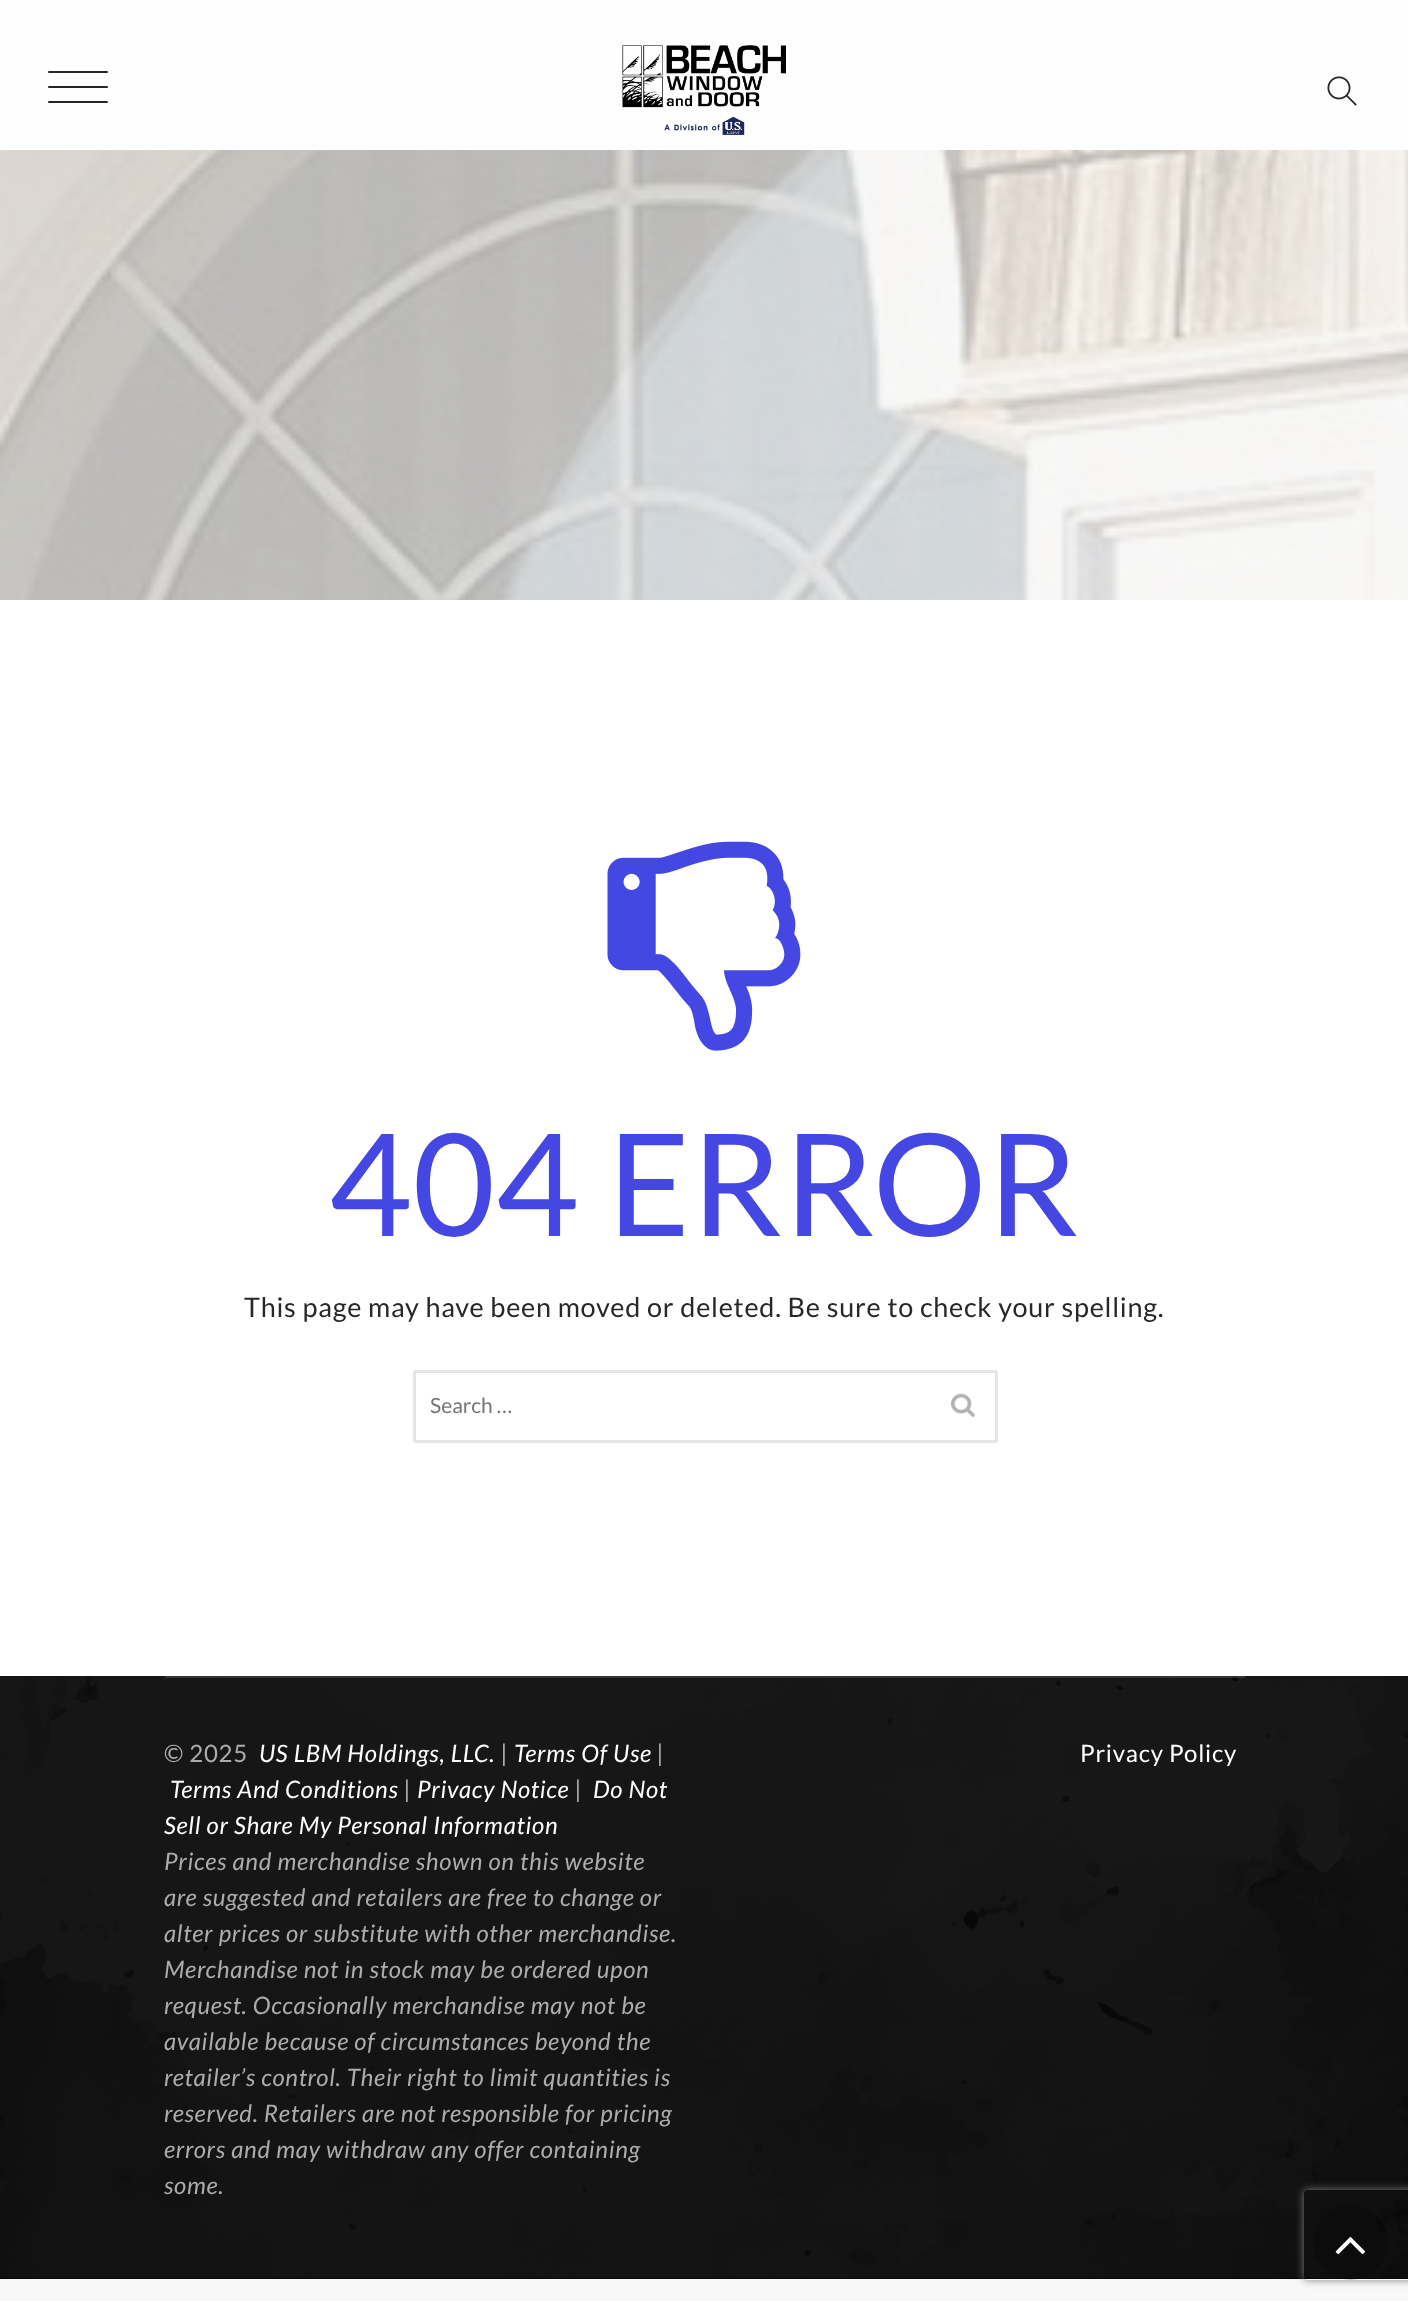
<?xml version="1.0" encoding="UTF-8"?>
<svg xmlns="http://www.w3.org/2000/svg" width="1408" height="2301">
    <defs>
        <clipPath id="clip1"><path d="M 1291 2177 H 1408 V 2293 H 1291 Z M 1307 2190 H 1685 C 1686.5 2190 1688 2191.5 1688 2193 V 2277 C 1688 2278.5 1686.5 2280 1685 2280 H 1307 C 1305.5 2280 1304 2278.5 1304 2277 V 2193 C 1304 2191.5 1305.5 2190 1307 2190 Z" clip-rule="evenodd"/></clipPath>
        <filter id="blur1" x="-50%" y="-200%" width="200%" height="500%"><feGaussianBlur stdDeviation="4"/></filter>
    </defs>
    <rect width="100%" height="100%" fill="#F8F8F8"/>
    <rect x="0" y="0" width="1408" height="150" fill="#FEFEFE"/>
    <image x="622" y="45" width="164" height="90" href="img_01.png"/>
    <rect x="48" y="86" width="60" height="2" rx="1" fill="#262626"/>
    <rect x="48" y="71" width="60" height="2" rx="1" fill="#262626"/>
    <rect x="48" y="101" width="60" height="2" rx="1" fill="#262626"/>
    <image x="1327" y="76" width="30" height="30" href="img_02.png"/>
    <image x="0" y="150" width="1408" height="450" href="img_03.png"/>
    <rect x="0" y="600" width="1408" height="1076" fill="#FFFFFF"/>
    <image x="607" y="841" width="194" height="210" href="img_04.png"/>
    <text x="329" y="1236" font-family="Lato" font-size="142.5" letter-spacing="0.75" fill="#4547E3">404 ERROR</text>
    <text x="244" y="1317" font-family="Lato" font-size="27" letter-spacing="0.75" fill="#282828">This page may have been moved or deleted. Be sure to check your spelling.</text>
    <rect x="414.5" y="1371.5" width="582" height="70" rx="1.5" fill="none" stroke="#E5E5E5" stroke-width="3"/>
    <text x="430" y="1413" font-family="Lato" font-size="21" fill="#757575">Search …</text>
    <image x="951" y="1393" width="24" height="25" href="img_05.png"/>
    <rect x="0" y="2278" width="1408" height="1" fill="#020202"/>
    <image x="0" y="1676" width="1408" height="603" href="img_06.png"/>
    <rect x="165" y="1676" width="1080" height="2" fill="#FFFFFF" fill-opacity="0.07"/>
    <rect x="165" y="1676" width="1080" height="2" fill="#FFFFFF" fill-opacity="0.07"/>
    <text x="164" y="1762" font-family="Lato" font-size="24" letter-spacing="0.75" fill="#ADADAD">© 2025</text>
    <text x="259" y="1762" font-family="Lato" font-size="24" font-style="italic" letter-spacing="0.75" fill="#FFFFFF">US LBM Holdings, LLC.</text>
    <text x="501" y="1762" font-family="Lato" font-size="24" font-style="italic" letter-spacing="0.75" fill="#ADADAD">|</text>
    <text x="514" y="1762" font-family="Lato" font-size="24" font-style="italic" letter-spacing="0.75" fill="#FFFFFF">Terms Of Use</text>
    <text x="657" y="1762" font-family="Lato" font-size="24" font-style="italic" letter-spacing="0.75" fill="#ADADAD">|</text>
    <text x="170" y="1798" font-family="Lato" font-size="24" font-style="italic" letter-spacing="0.75" fill="#FFFFFF">Terms And Conditions</text>
    <text x="404" y="1798" font-family="Lato" font-size="24" font-style="italic" letter-spacing="0.75" fill="#ADADAD">|</text>
    <text x="417" y="1798" font-family="Lato" font-size="24" font-style="italic" letter-spacing="0.75" fill="#FFFFFF">Privacy Notice</text>
    <text x="575" y="1798" font-family="Lato" font-size="24" font-style="italic" letter-spacing="0.75" fill="#ADADAD">|</text>
    <text x="593" y="1798" font-family="Lato" font-size="24" font-style="italic" letter-spacing="0.75" fill="#FFFFFF">Do Not</text>
    <text x="164" y="1834" font-family="Lato" font-size="24" font-style="italic" letter-spacing="0.75" fill="#FFFFFF">Sell or Share My Personal Information</text>
    <text font-family="Lato" font-size="24" font-style="italic" letter-spacing="0.75" fill="#ADADAD">
        <tspan x="164" y="1870">Prices and merchandise shown on this website</tspan>
        <tspan x="164" y="1906">are suggested and retailers are free to change or</tspan>
        <tspan x="164" y="1942">alter prices or substitute with other merchandise.</tspan>
        <tspan x="164" y="1978">Merchandise not in stock may be ordered upon</tspan>
        <tspan x="164" y="2014">request. Occasionally merchandise may not be</tspan>
        <tspan x="164" y="2050">available because of circumstances beyond the</tspan>
        <tspan x="164" y="2086">retailer’s control. Their right to limit quantities is</tspan>
        <tspan x="164" y="2122">reserved. Retailers are not responsible for pricing</tspan>
        <tspan x="164" y="2158">errors and may withdraw any offer containing</tspan>
        <tspan x="164" y="2194">some.</tspan>
    </text>
    <text x="1080" y="1762" font-family="Lato" font-size="24" letter-spacing="0.75" fill="#FFFFFF">Privacy Policy</text>
    <g clip-path="url(#clip1)">
        <rect x="1304" y="2190" width="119" height="90" rx="3" fill="#808080" filter="url(#blur1)"/>
    </g>
    <circle cx="1350.5" cy="2242.5" r="37.5" fill="#000000" fill-opacity="0.2"/>
    <image x="1335" y="2237" width="30" height="18" href="img_07.png"/>
</svg>
